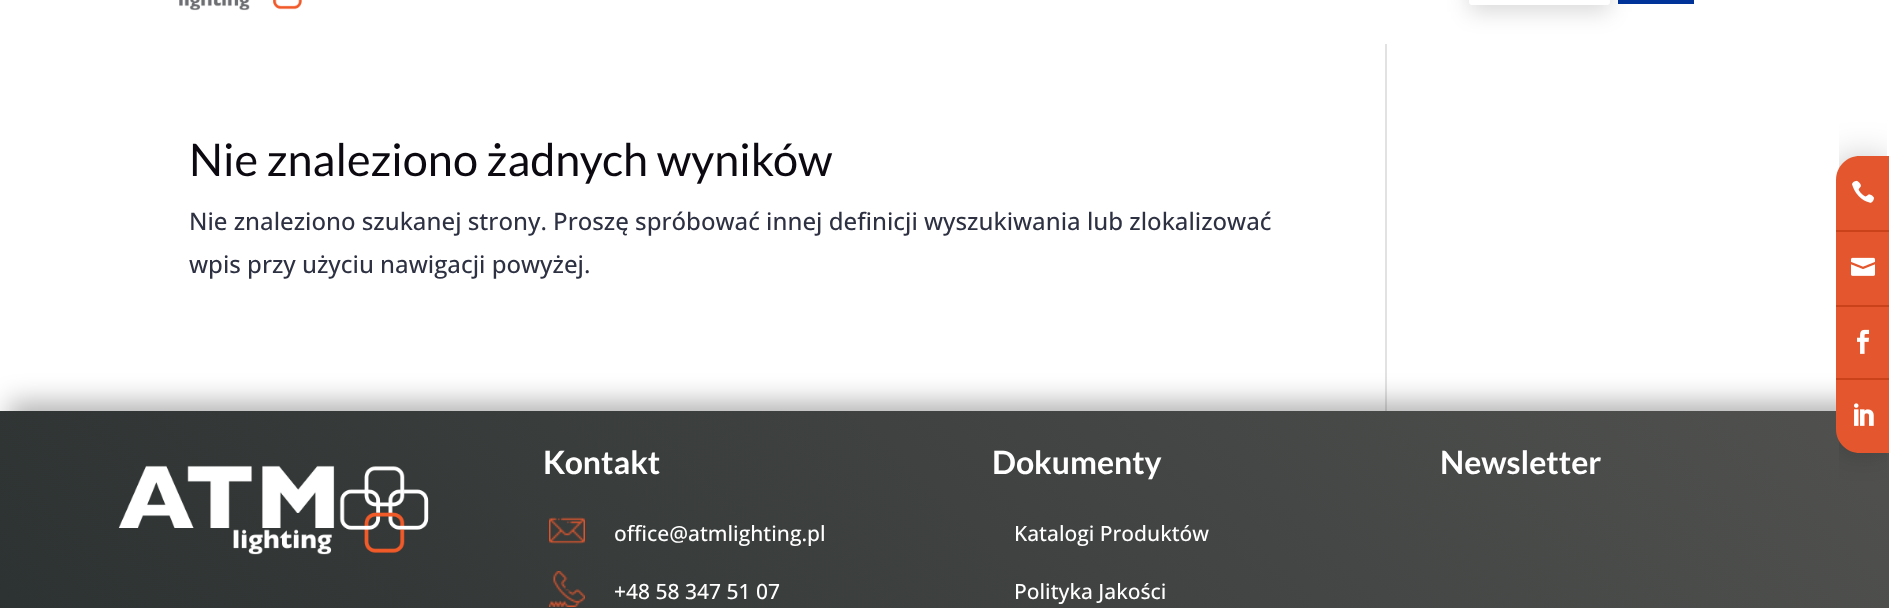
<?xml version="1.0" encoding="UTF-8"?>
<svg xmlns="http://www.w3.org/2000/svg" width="1889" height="608">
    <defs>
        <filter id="blur1" x="-50%" y="-200%" width="200%" height="500%"><feGaussianBlur stdDeviation="11"/></filter>
        <filter id="blur2" x="-50%" y="-200%" width="200%" height="500%"><feGaussianBlur stdDeviation="13.5"/></filter>
        <linearGradient id="g1" gradientUnits="userSpaceOnUse" x1="341" y1="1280" x2="1550" y2="71"><stop offset="0" stop-color="#272D2D"/><stop offset="0.99" stop-color="#50514F"/></linearGradient>
        <filter id="blur3" x="-50%" y="-200%" width="200%" height="500%"><feGaussianBlur stdDeviation="22.5"/></filter>
    </defs>
    <rect width="100%" height="100%" fill="#FFFFFF"/>
    <image x="179" y="0" width="123" height="11" href="img_01.png"/>
    <rect x="1469" y="-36" width="141" height="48" rx="3" fill="#000000" fill-opacity="0.15" filter="url(#blur1)"/>
    <rect x="1469" y="-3" width="141" height="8" rx="3" fill="#FFFFFF"/>
    <rect x="1618" y="0" width="76" height="4" fill="#003399"/>
    <text x="189" y="176" font-family="Lato" font-size="45" fill="#0C0910">Nie znaleziono żadnych wyników</text>
    <text font-family="Open Sans" font-size="24" font-weight="500" fill="#2D3142">
        <tspan x="189" y="230">Nie znaleziono szukanej strony. Proszę spróbować innej definicji wyszukiwania lub zlokalizować</tspan>
        <tspan x="189" y="273">wpis przy użyciu nawigacji powyżej.</tspan>
    </text>
    <rect x="1385" y="44" width="2" height="367" fill="#E2E2E2"/>
    <rect x="9" y="402" width="1872" height="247" fill="#000000" fill-opacity="0.3" filter="url(#blur2)"/>
    <rect x="0" y="411" width="1889" height="197" fill="url(#g1)"/>
    <text x="543" y="474" font-family="Lato" font-size="32" font-weight="700" fill="#FFFFFF">Kontakt</text>
    <image x="549" y="517" width="36" height="27" href="img_02.png"/>
    <text x="614" y="541" font-family="Open Sans" font-size="21" font-weight="500" fill="#FFFFFF">office@atmlighting.pl</text>
    <image x="549" y="571" width="36" height="36" href="img_03.png"/>
    <text x="614" y="599" font-family="Open Sans" font-size="21" font-weight="500" fill="#FFFFFF">+48 58 347 51 07</text>
    <text x="992" y="474" font-family="Lato" font-size="32" font-weight="700" fill="#FFFFFF">Dokumenty</text>
    <text x="1014" y="541" font-family="Open Sans" font-size="21" font-weight="500" fill="#FFFFFF">Katalogi Produktów</text>
    <text x="1014" y="599" font-family="Open Sans" font-size="21" font-weight="500" fill="#FFFFFF">Polityka Jakości</text>
    <text x="1440" y="474" font-family="Lato" font-size="32" font-weight="700" fill="#FFFFFF">Newsletter</text>
    <image x="118" y="465" width="311" height="90" href="img_04.png"/>
    <rect x="1851" y="171" width="24" height="267" rx="9" fill="#000000" filter="url(#blur3)"/>
    <path d="M 1860 156 H 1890 V 453 H 1860 C 1846.5 453 1836 442.5 1836 429 V 180 C 1836 166.5 1846.5 156 1860 156 Z" fill="#E4572E"/>
    <image x="1852" y="180" width="22" height="23" href="img_05.png"/>
    <rect x="1836" y="230" width="53" height="2" fill="#C9421A"/>
    <image x="1851" y="257" width="24" height="19" href="img_06.png"/>
    <rect x="1836" y="305" width="53" height="2" fill="#C9421A"/>
    <image x="1857" y="329" width="13" height="25" href="img_07.png"/>
    <rect x="1836" y="378" width="53" height="2" fill="#C9421A"/>
    <image x="1854" y="403" width="20" height="23" href="img_08.png"/>
</svg>
